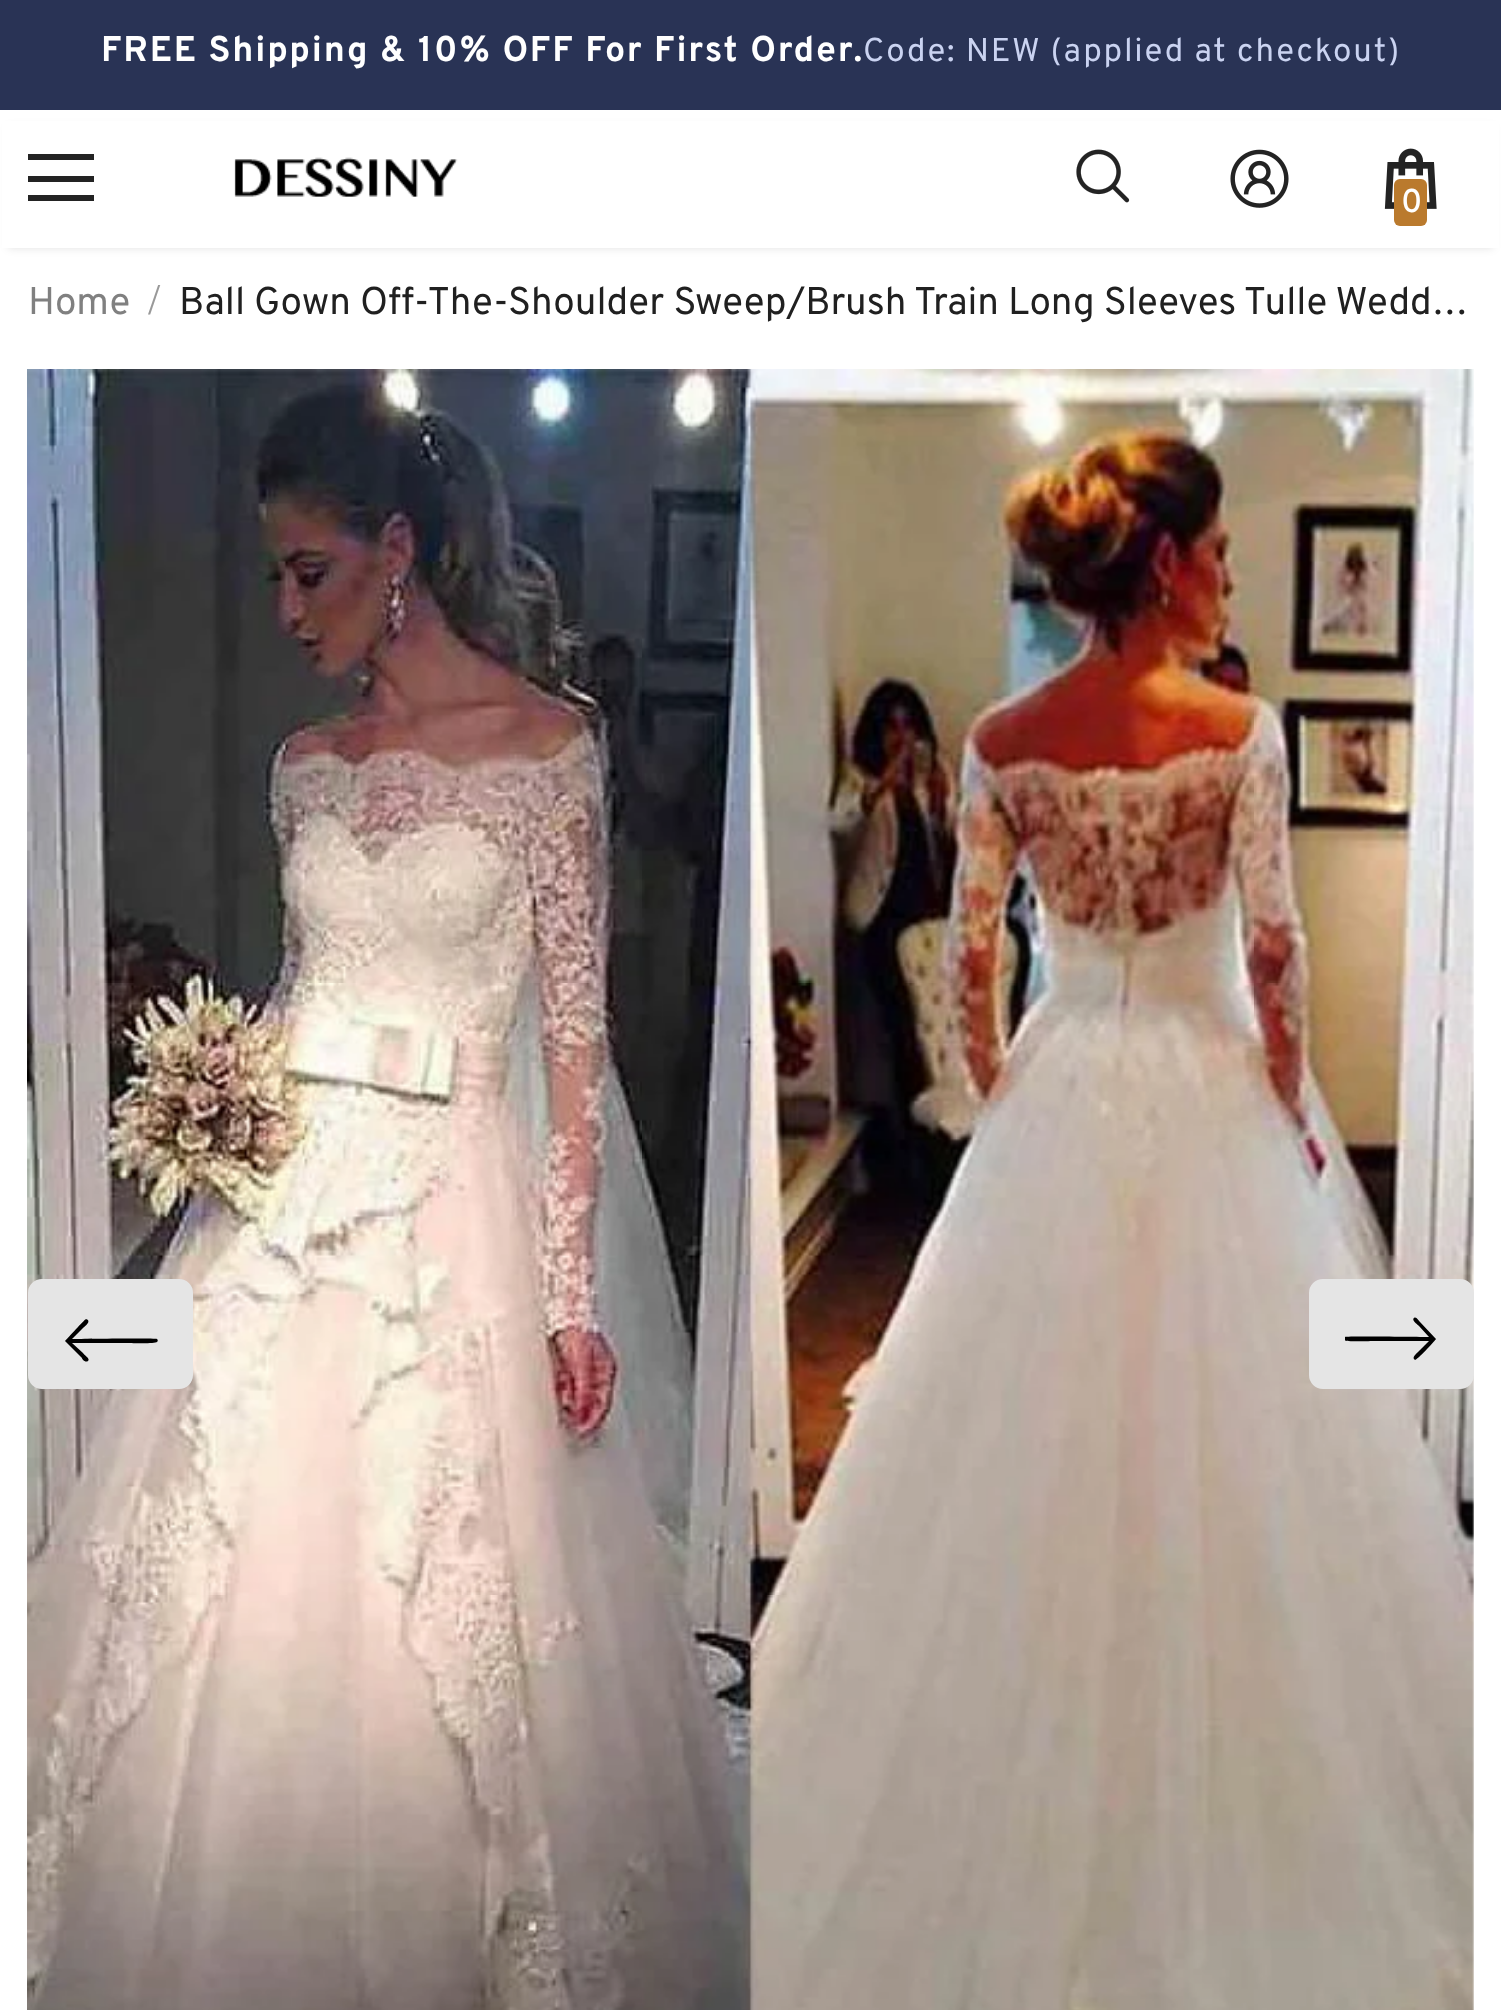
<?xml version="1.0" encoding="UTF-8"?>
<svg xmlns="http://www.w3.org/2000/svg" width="1501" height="2010">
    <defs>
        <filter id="blur1" x="-50%" y="-200%" width="200%" height="500%"><feGaussianBlur stdDeviation="4"/></filter>
        <clipPath id="clip1"><rect x="1345" y="1293" width="96" height="96"/></clipPath>
    </defs>
    <rect width="100%" height="100%" fill="#FFFFFF"/>
    <rect x="0" y="0" width="1501" height="110" fill="#293355"/>
    <text x="101" y="61" font-family="Overpass" font-size="35.75" font-weight="700" letter-spacing="1.8" fill="#FFFFFF">FREE Shipping &amp; 10% OFF For First Order.</text>
    <text x="863" y="61" font-family="Overpass" font-size="33" letter-spacing="1.8" fill="#CAD3F1">Code: NEW (applied at checkout)</text>
    <rect x="8" y="127" width="1485" height="121" fill="#000000" fill-opacity="0.12" filter="url(#blur1)"/>
    <rect x="2" y="121" width="1497" height="127" fill="#FFFFFF"/>
    <rect x="28" y="154" width="66" height="6" fill="#232323"/>
    <rect x="28" y="176" width="66" height="6" fill="#232323"/>
    <rect x="28" y="195" width="66" height="6" fill="#232323"/>
    <image x="234" y="157" width="224" height="40" href="img_01.png"/>
    <image x="1076" y="149" width="54" height="54" href="img_02.png"/>
    <image x="1230" y="149" width="59" height="59" href="img_03.png"/>
    <image x="1384" y="148" width="53" height="61" href="img_04.png"/>
    <rect x="1394" y="179" width="33" height="47" rx="6" fill="#BA7A2D"/>
    <text x="1401" y="212" font-family="Overpass" font-size="33" font-weight="500" fill="#FFFFFF">0</text>
    <text x="28" y="314" font-family="Overpass" font-size="38.5" fill="#808080">Home</text>
    <text x="148" y="314" font-family="Liberation Serif" font-size="44" fill="#999999">/</text>
    <text x="179" y="314" font-family="Overpass" font-size="38.5" fill="#202020">Ball Gown Off-The-Shoulder Sweep/Brush Train Long Sleeves Tulle Wedd…</text>
    <image x="27" y="369" width="1447" height="1641" href="img_05.png"/>
    <rect x="29.5" y="1280.5" width="162" height="107" rx="12.5" fill="#E5E5E5" stroke="#E5E5E5" stroke-width="3"/>
    <path d="M 86 1319 C 84 1320 68 1338 65 1341 L 82 1358 C 82 1359 85 1363 88 1361 C 91 1359 83 1354 83 1353 L 72 1343 H 128 C 131 1343 155 1344 157 1342 C 158 1341 158 1340 157 1339 C 155 1338 81 1339 72 1339 L 83 1328 C 84 1327 90 1323 88 1320 Z" fill="#000000"/>
    <rect x="1310.5" y="1280.5" width="162" height="107" rx="12.5" fill="#E5E5E5" stroke="#E5E5E5" stroke-width="3"/>
    <g clip-path="url(#clip1)">
        <path d="M 1415 1360 C 1417 1360 1434 1342 1436 1339 L 1420 1322 C 1419 1321 1416 1316 1414 1318 C 1411 1320 1418 1325 1419 1326 L 1429 1337 C 1421 1337 1346 1336 1345 1337 C 1344 1338 1344 1339 1344 1340 C 1346 1342 1371 1341 1374 1341 H 1429 L 1419 1351 C 1418 1352 1412 1357 1414 1359 Z" fill="#000000"/>
    </g>
</svg>
